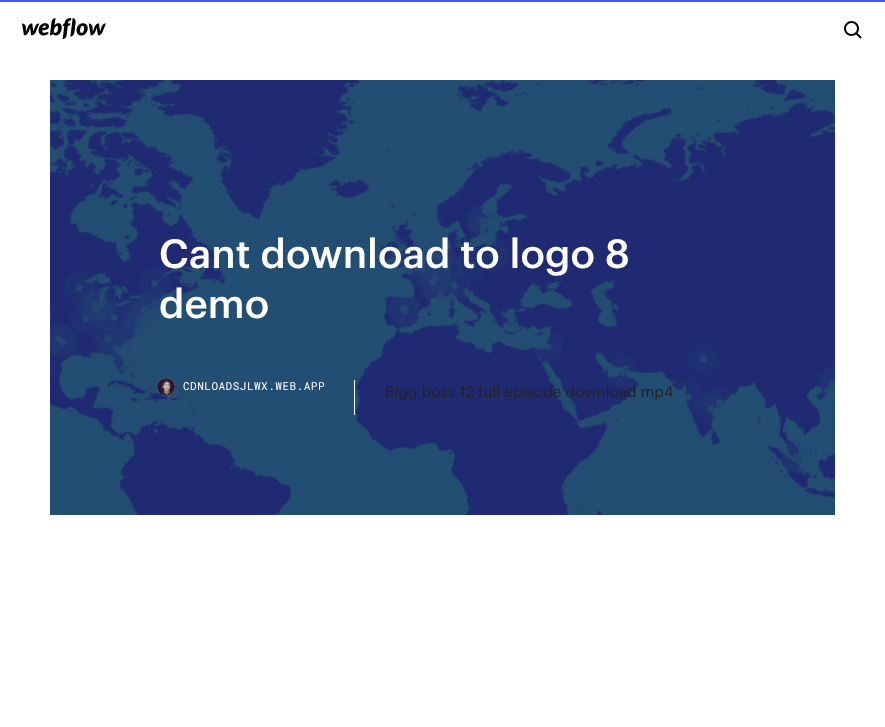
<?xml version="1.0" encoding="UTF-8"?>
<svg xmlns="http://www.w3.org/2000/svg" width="885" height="727">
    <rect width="100%" height="100%" fill="#FFFFFF"/>
    <rect x="0" y="0" width="885" height="2" fill="#4353FF"/>
    <image x="22" y="18" width="84" height="22" href="img_01.png"/>
    <image x="844" y="21" width="18" height="18" href="img_02.png"/>
    <image x="50" y="80" width="785" height="435" href="img_03.png"/>
    <text font-family="Graphik" font-size="40" font-weight="500" fill="#FFFFFF">
        <tspan x="159" y="268">Cant download to logo 8</tspan>
        <tspan x="159" y="318">demo</tspan>
    </text>
    <rect x="354" y="380" width="1" height="35" fill="#FFFFFF"/>
    <circle cx="166" cy="387" r="9" fill="#EBEBEB"/>
    <image x="157" y="378" width="18" height="18" href="img_04.png"/>
    <text x="183" y="390" font-family="Roboto Mono" font-size="11" letter-spacing="0.5" fill="#FFFFFF">CDNLOADSJLWX.WEB.APP</text>
    <text x="385" y="397" font-family="Graphik" font-size="15" fill="#222222">Bigg boss 12 full episode download mp4</text>
</svg>
